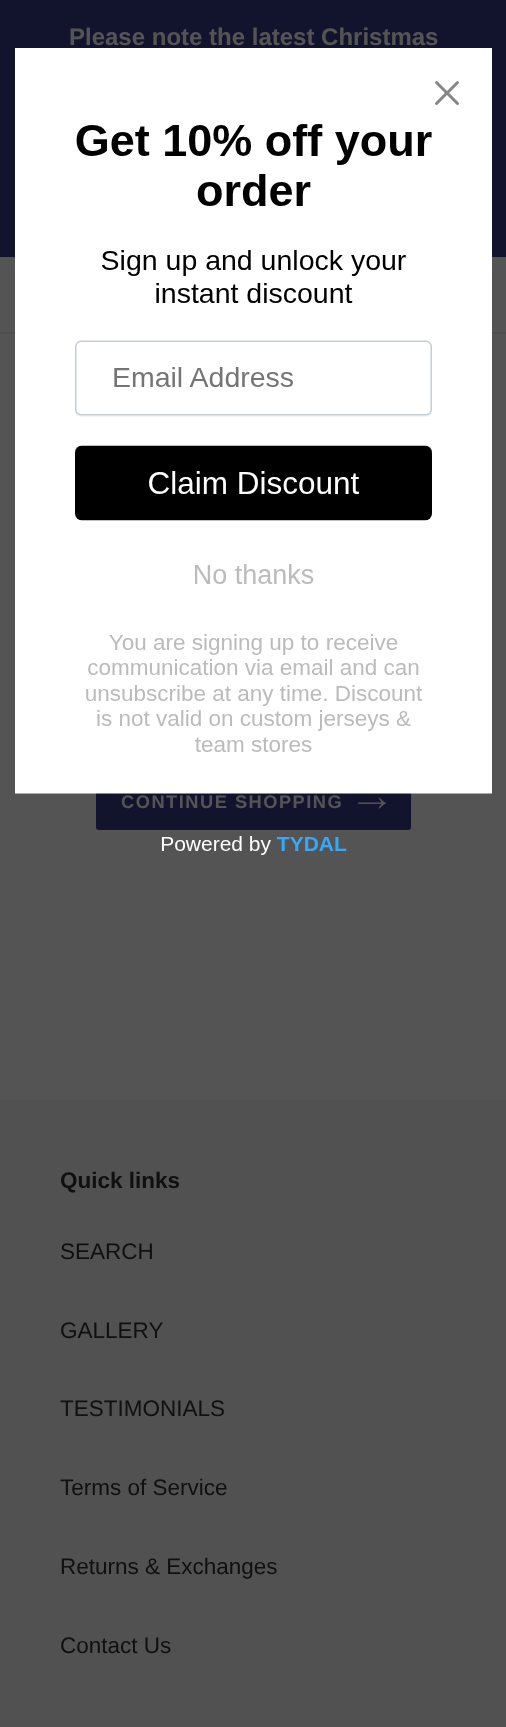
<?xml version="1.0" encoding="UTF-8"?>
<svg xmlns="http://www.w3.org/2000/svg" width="506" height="1727">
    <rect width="100%" height="100%" fill="#FFFFFF"/>
    <rect x="0" y="0" width="506" height="257" fill="#383C88"/>
    <text x="69" y="45" font-family="Liberation Sans" font-size="24" font-weight="700" fill="#FFFFFF">Please note the latest Christmas</text>
    <rect x="0" y="332" width="506" height="2" fill="#EBEBEB"/>
    <rect x="96" y="776" width="315" height="54" rx="3" fill="#383C88"/>
    <text x="121" y="808" font-family="Liberation Sans" font-size="18.25" font-weight="700" letter-spacing="1.5" fill="#FFFFFF">CONTINUE SHOPPING</text>
    <image x="358" y="797" width="28" height="12" href="img_02.png"/>
    <rect x="0" y="1100" width="506" height="627" fill="#F6F6F6"/>
    <text x="60" y="1188" font-family="Liberation Sans" font-size="22.5" font-weight="700" fill="#333232">Quick links</text>
    <text x="60" y="1259" font-family="Liberation Sans" font-size="22.5" fill="#333232">SEARCH</text>
    <text x="60" y="1338" font-family="Liberation Sans" font-size="22.5" fill="#333232">GALLERY</text>
    <text x="60" y="1416" font-family="Liberation Sans" font-size="22.5" fill="#333232">TESTIMONIALS</text>
    <text x="60" y="1495" font-family="Liberation Sans" font-size="22.5" fill="#333232">Terms of Service</text>
    <text x="60" y="1574" font-family="Liberation Sans" font-size="22.5" fill="#333232">Returns &amp; Exchanges</text>
    <text x="60" y="1653" font-family="Liberation Sans" font-size="22.5" fill="#333232">Contact Us</text>
    <image x="0" y="0" width="506" height="1727" href="img_01.png"/>
</svg>
